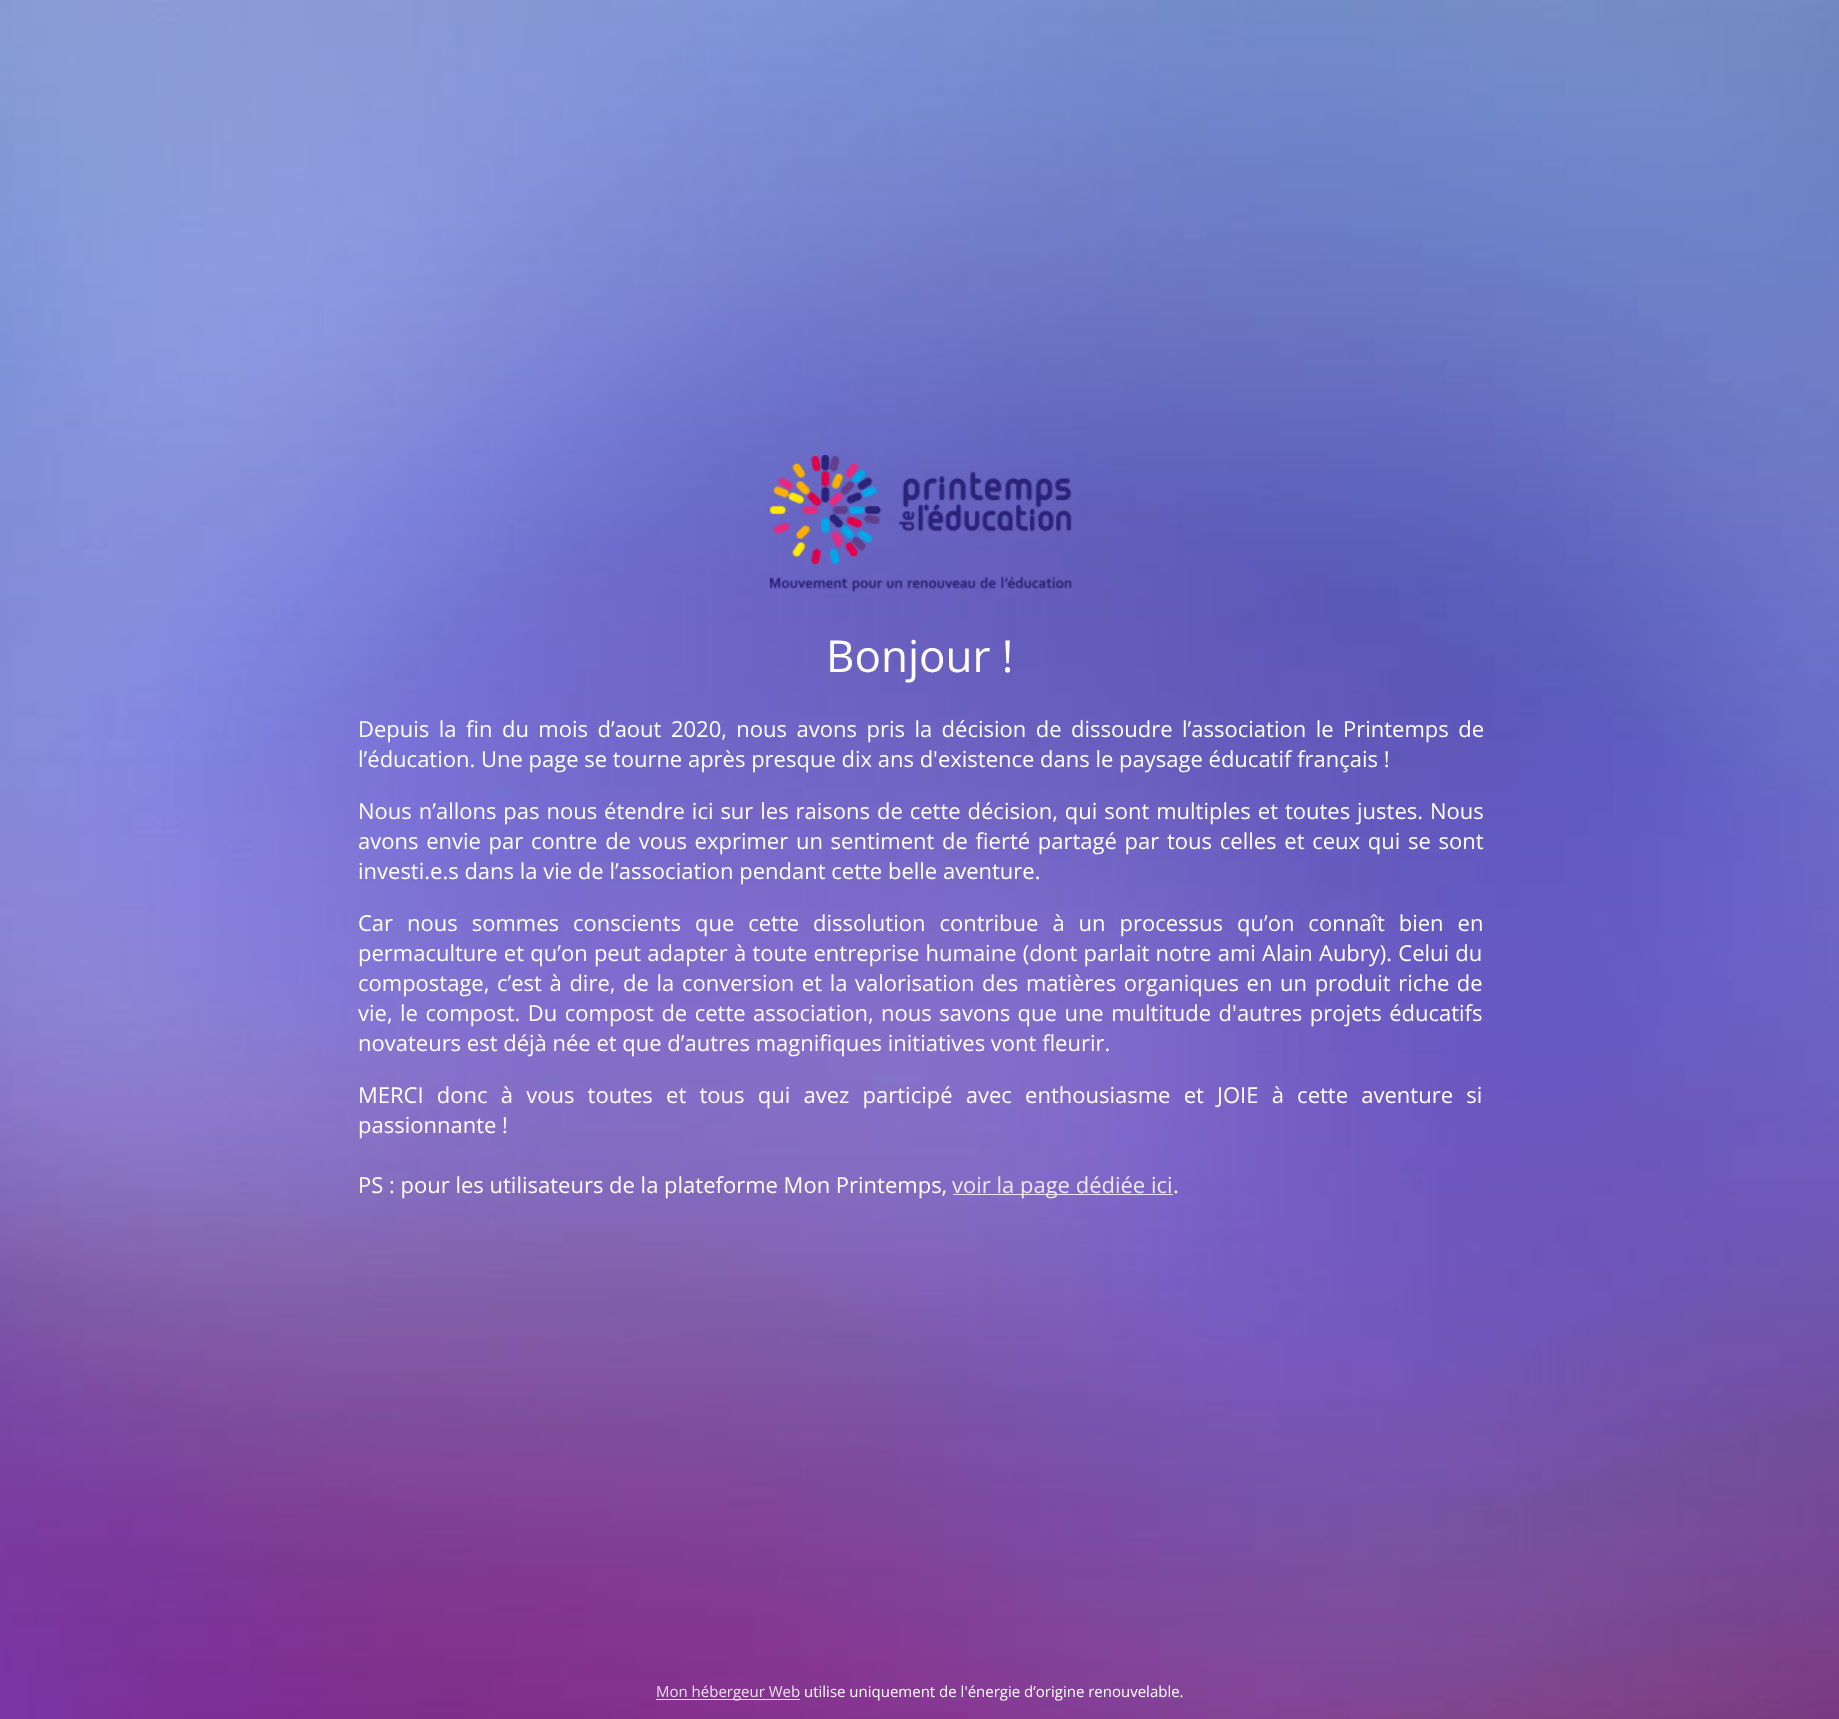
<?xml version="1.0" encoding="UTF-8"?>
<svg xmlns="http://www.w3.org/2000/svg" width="1839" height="1719">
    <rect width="100%" height="100%" fill="#FFFFFF"/>
    <image x="0" y="0" width="1839" height="1719" href="img_01.png"/>
    <image x="770" y="455" width="302" height="137" href="img_02.png"/>
    <text x="826" y="672" font-family="Open Sans" font-size="44" fill="#FFFFFF">Bonjour !</text>
    <text font-family="Open Sans" font-size="22" fill="#FFFFFF">
        <tspan x="358" y="737" word-spacing="3.75">Depuis la fin du mois d’aout 2020, nous avons pris la décision de dissoudre l’association le Printemps de</tspan>
        <tspan x="358" y="767">l’éducation. Une page se tourne après presque dix ans d'existence dans le paysage éducatif français !</tspan>
    </text>
    <text font-family="Open Sans" font-size="22" fill="#FFFFFF">
        <tspan x="358" y="819" word-spacing="1.2">Nous n’allons pas nous étendre ici sur les raisons de cette décision, qui sont multiples et toutes justes. Nous</tspan>
        <tspan x="358" y="849" word-spacing="2">avons envie par contre de vous exprimer un sentiment de fierté partagé par tous celles et ceux qui se sont</tspan>
        <tspan x="358" y="879">investi.e.s dans la vie de l’association pendant cette belle aventure.</tspan>
    </text>
    <text font-family="Open Sans" font-size="22" fill="#FFFFFF">
        <tspan x="358" y="931" word-spacing="8.25">Car nous sommes conscients que cette dissolution contribue à un processus qu’on connaît bien en</tspan>
        <tspan x="358" y="961" word-spacing="0.5">permaculture et qu’on peut adapter à toute entreprise humaine (dont parlait notre ami Alain Aubry). Celui du</tspan>
        <tspan x="358" y="991" word-spacing="1.9">compostage, c’est à dire, de la conversion et la valorisation des matières organiques en un produit riche de</tspan>
        <tspan x="358" y="1021" word-spacing="1.75">vie, le compost. Du compost de cette association, nous savons que une multitude d'autres projets éducatifs</tspan>
        <tspan x="358" y="1051">novateurs est déjà née et que d’autres magnifiques initiatives vont fleurir.</tspan>
    </text>
    <text font-family="Open Sans" font-size="22" fill="#FFFFFF">
        <tspan x="358" y="1103" word-spacing="7.5">MERCI donc à vous toutes et tous qui avez participé avec enthousiasme et JOIE à cette aventure si</tspan>
        <tspan x="358" y="1133">passionnante !</tspan>
    </text>
    <text x="358" y="1193" font-family="Open Sans" font-size="22" fill="#FFFFFF">PS : pour les utilisateurs de la plateforme Mon Printemps,</text>
    <rect x="953" y="1194" width="220" height="1" fill="#FFFFFF" fill-opacity="0.85"/>
    <text x="952" y="1193" font-family="Open Sans" font-size="22" fill="#ECE8F6">voir la page dédiée ici</text>
    <text x="1173" y="1193" font-family="Open Sans" font-size="22" fill="#FFFFFF">.</text>
    <rect x="656" y="1699" width="144" height="1" fill="#FFFFFF" fill-opacity="0.85"/>
    <text x="656" y="1697" font-family="Open Sans" font-size="15" fill="#EDE1EE">Mon hébergeur Web</text>
    <text x="804" y="1697" font-family="Open Sans" font-size="15" fill="#FFFFFF">utilise uniquement de l'énergie d’origine renouvelable.</text>
</svg>
